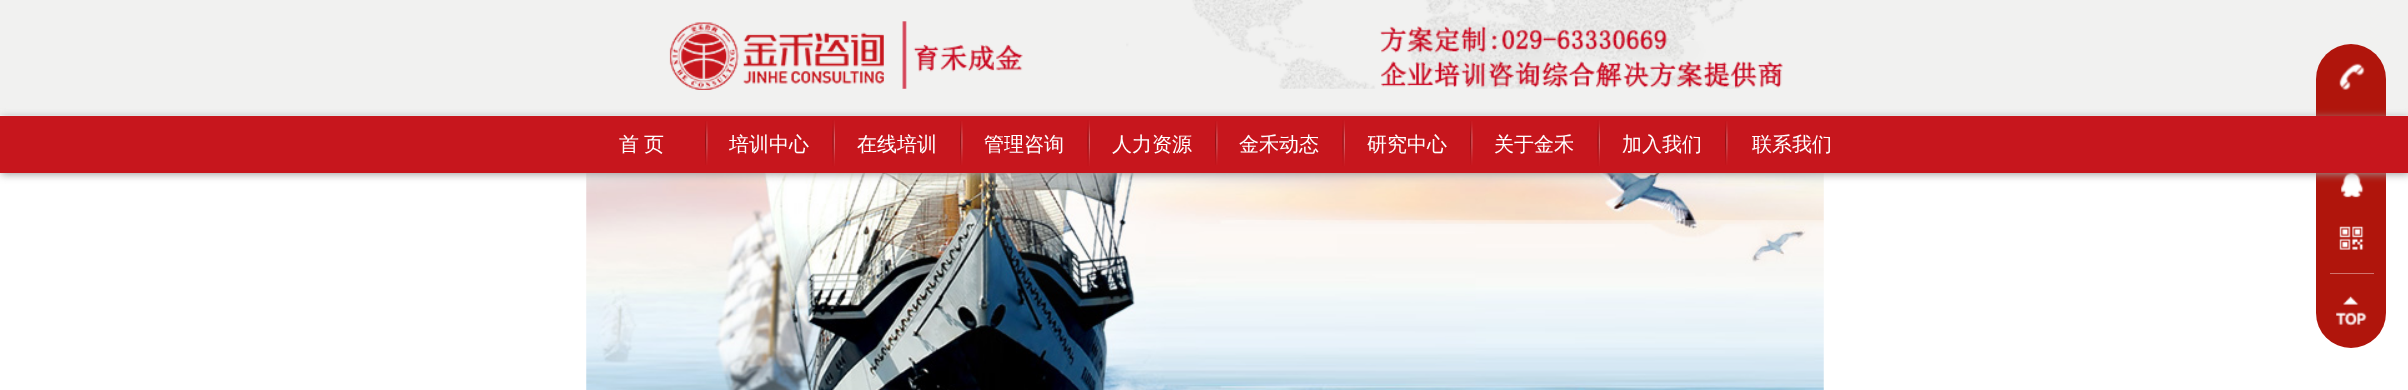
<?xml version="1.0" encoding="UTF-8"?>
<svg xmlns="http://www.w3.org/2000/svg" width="2408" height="390">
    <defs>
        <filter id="blur1" x="-50%" y="-200%" width="200%" height="500%"><feGaussianBlur stdDeviation="4.5"/></filter>
    </defs>
    <rect width="100%" height="100%" fill="#FFFFFF"/>
    <rect x="0" y="0" width="2408" height="115" fill="#F1F1F0"/>
    <image x="902" y="0" width="881" height="89" href="img_01.png"/>
    <image x="669" y="22" width="215" height="68" href="img_02.png"/>
    <rect x="2316" y="44" width="70" height="304" rx="35" fill="#B0150C"/>
    <image x="2341" y="173" width="23" height="25" href="img_06.png"/>
    <image x="586" y="173" width="1238" height="217" href="img_09.png"/>
    <rect x="1" y="118" width="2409" height="56" fill="#999999" filter="url(#blur1)"/>
    <rect x="0" y="116" width="2408" height="57" fill="#C7161D"/>
    <image x="705" y="121" width="3" height="44" href="img_03.png"/>
    <text x="619" y="151" word-spacing="-1" font-family="WenQuanYi Zen Hei" font-size="20" font-weight="500" fill="#FFFFFF">首 页</text>
    <image x="832" y="120" width="3" height="46" href="img_04.png"/>
    <text x="729" y="151" font-family="WenQuanYi Zen Hei" font-size="20" font-weight="500" fill="#FFFFFF">培训中心</text>
    <image x="960" y="121" width="3" height="44" href="img_03.png"/>
    <text x="857" y="151" font-family="WenQuanYi Zen Hei" font-size="20" font-weight="500" fill="#FFFFFF">在线培训</text>
    <image x="1087" y="120" width="3" height="46" href="img_04.png"/>
    <text x="984" y="151" font-family="WenQuanYi Zen Hei" font-size="20" font-weight="500" fill="#FFFFFF">管理咨询</text>
    <image x="1215" y="121" width="3" height="44" href="img_03.png"/>
    <text x="1112" y="151" font-family="WenQuanYi Zen Hei" font-size="20" font-weight="500" fill="#FFFFFF">人力资源</text>
    <image x="1342" y="120" width="3" height="46" href="img_04.png"/>
    <text x="1239" y="151" font-family="WenQuanYi Zen Hei" font-size="20" font-weight="500" fill="#FFFFFF">金禾动态</text>
    <image x="1470" y="121" width="3" height="44" href="img_03.png"/>
    <text x="1367" y="151" font-family="WenQuanYi Zen Hei" font-size="20" font-weight="500" fill="#FFFFFF">研究中心</text>
    <image x="1597" y="120" width="3" height="46" href="img_04.png"/>
    <text x="1494" y="151" font-family="WenQuanYi Zen Hei" font-size="20" font-weight="500" fill="#FFFFFF">关于金禾</text>
    <image x="1725" y="121" width="3" height="44" href="img_03.png"/>
    <text x="1622" y="151" font-family="WenQuanYi Zen Hei" font-size="20" font-weight="500" fill="#FFFFFF">加入我们</text>
    <text x="1752" y="151" font-family="WenQuanYi Zen Hei" font-size="20" font-weight="500" fill="#FFFFFF">联系我们</text>
    <image x="2339" y="63" width="26" height="27" href="img_05.png"/>
    <image x="2339" y="226" width="25" height="24" href="img_07.png"/>
    <rect x="2330" y="273" width="44" height="1" fill="#D0736D"/>
    <image x="2336" y="296" width="31" height="30" href="img_08.png"/>
</svg>
